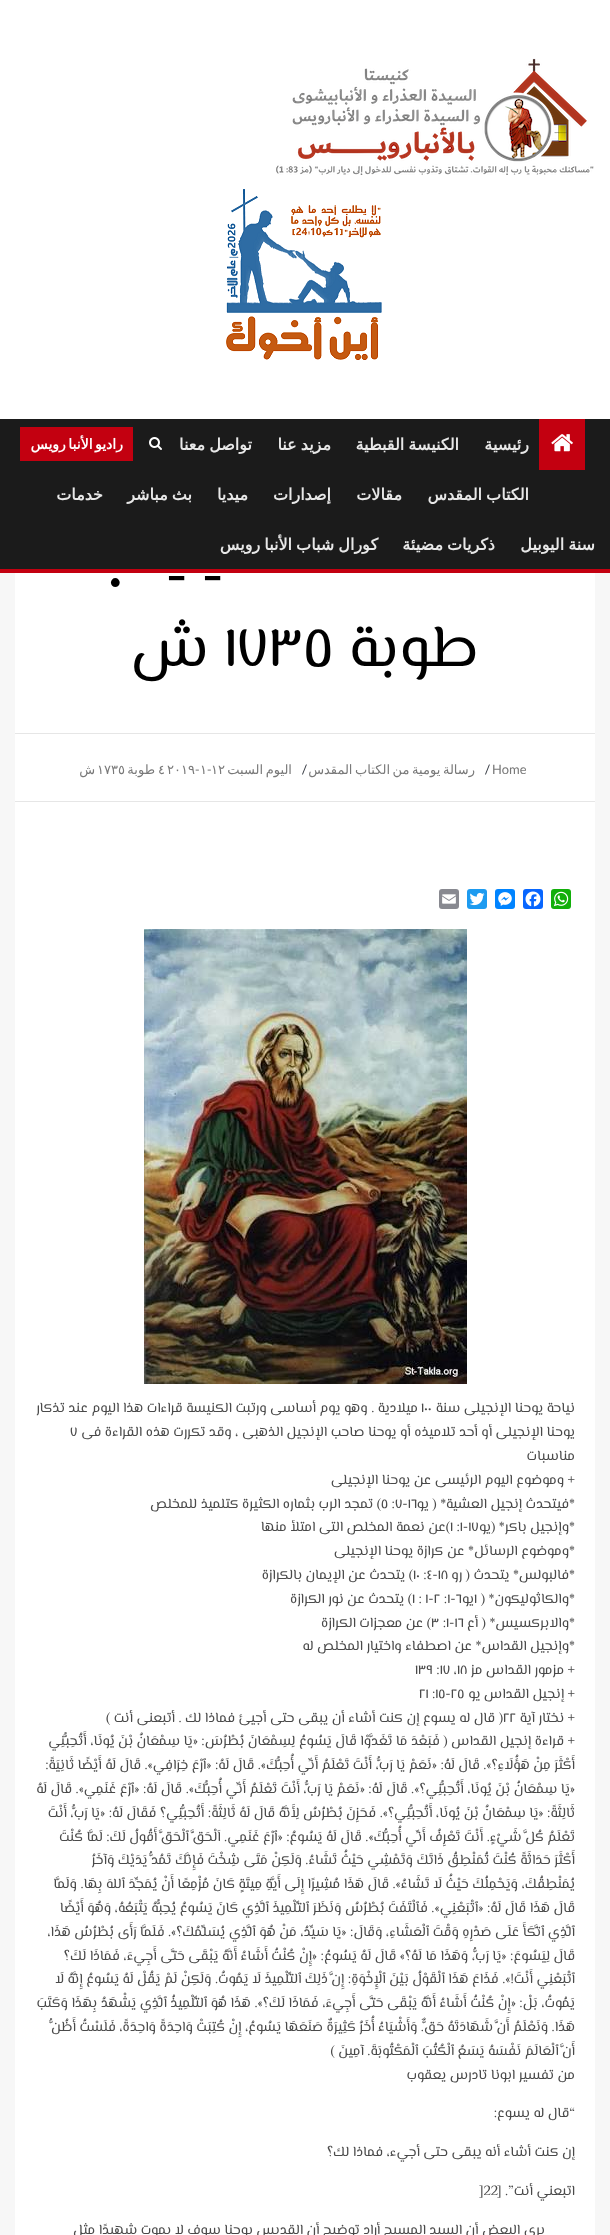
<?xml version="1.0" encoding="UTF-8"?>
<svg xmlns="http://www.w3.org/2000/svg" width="610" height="2235">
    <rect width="100%" height="100%" fill="#F7F7F7"/>
    <rect x="0" y="0" width="610" height="419" fill="#FFFFFF"/>
    <image x="276" y="58" width="318" height="117" href="img_01.png"/>
    <image x="226" y="189" width="156" height="171" href="img_02.png"/>
    <rect x="0" y="419" width="610" height="150" fill="#1B1B1B"/>
    <rect x="0" y="569" width="610" height="4" fill="#C30010"/>
    <image x="149" y="437" width="13" height="13" href="img_03.png"/>
    <rect x="20" y="427" width="113" height="34" fill="#C30010"/>
    <text x="123" y="449" word-spacing="-2" font-family="DejaVu Sans" font-size="14" font-weight="700" direction="rtl" fill="#FFFFFF">راديو الأنبا رويس</text>
    <rect x="539" y="419" width="46" height="51" fill="#C30010"/>
    <image x="551" y="434" width="22" height="18" href="img_04.png"/>
    <text x="529" y="450" font-family="DejaVu Sans" font-size="16" font-weight="700" direction="rtl" fill="#E8E8E8">رئيسية</text>
    <text x="459" y="450" word-spacing="-1" font-family="DejaVu Sans" font-size="16" font-weight="700" direction="rtl" fill="#E8E8E8">الكنيسة القبطية</text>
    <text x="331" y="450" word-spacing="-1" font-family="DejaVu Sans" font-size="16" font-weight="700" direction="rtl" fill="#E8E8E8">مزيد عنا</text>
    <text x="252" y="450" word-spacing="-1" font-family="DejaVu Sans" font-size="16" font-weight="700" direction="rtl" fill="#E8E8E8">تواصل معنا</text>
    <text x="529" y="500" word-spacing="-1" font-family="DejaVu Sans" font-size="16" font-weight="700" direction="rtl" fill="#E8E8E8">الكتاب المقدس</text>
    <text x="402" y="500" font-family="DejaVu Sans" font-size="16" font-weight="700" direction="rtl" fill="#E8E8E8">مقالات</text>
    <text x="331" y="500" font-family="DejaVu Sans" font-size="16" font-weight="700" direction="rtl" fill="#E8E8E8">إصدارات</text>
    <text x="248" y="500" font-family="DejaVu Sans" font-size="16" font-weight="700" direction="rtl" fill="#E8E8E8">ميديا</text>
    <text x="192" y="500" word-spacing="-1" font-family="DejaVu Sans" font-size="16" font-weight="700" direction="rtl" fill="#E8E8E8">بث مباشر</text>
    <text x="103" y="500" font-family="DejaVu Sans" font-size="16" font-weight="700" direction="rtl" fill="#E8E8E8">خدمات</text>
    <text x="595" y="550" word-spacing="-1" font-family="DejaVu Sans" font-size="16" font-weight="700" direction="rtl" fill="#E8E8E8">سنة اليوبيل</text>
    <text x="495" y="550" word-spacing="-1" font-family="DejaVu Sans" font-size="16" font-weight="700" direction="rtl" fill="#E8E8E8">ذكريات مضيئة</text>
    <text x="378" y="550" word-spacing="-1" font-family="DejaVu Sans" font-size="16" font-weight="700" direction="rtl" fill="#E8E8E8">كورال شباب الأنبا رويس</text>
    <rect x="15" y="573" width="580" height="160" fill="#FFFFFF"/>
    <text x="201" y="594" font-family="El Messiri" font-size="60" fill="#000000">-</text>
    <text x="165" y="594" font-family="El Messiri" font-size="60" fill="#000000">-</text>
    <text x="107" y="594" font-family="El Messiri" font-size="60" fill="#000000">٠</text>
    <text x="479" y="666" font-family="El Messiri" font-size="60" direction="rtl" fill="#000000">طوبة</text>
    <text x="224" y="666" font-family="El Messiri" font-size="60" fill="#000000">١٧٣٥</text>
    <text x="209" y="666" font-family="El Messiri" font-size="60" direction="rtl" fill="#000000">ش</text>
    <rect x="15" y="734" width="580" height="67" fill="#FFFFFF"/>
    <rect x="15" y="733" width="580" height="1" fill="#E6E6E6"/>
    <rect x="15" y="801" width="580" height="1" fill="#E6E6E6"/>
    <text x="492" y="774" font-family="Lato" font-size="13" fill="#797979">Home</text>
    <text x="485" y="774" font-family="Lato" font-size="13" fill="#393E46">/</text>
    <text x="475" y="774" word-spacing="-1.5" font-family="DejaVu Sans" font-size="13" direction="rtl" fill="#797979">رسالة يومية من الكتاب المقدس</text>
    <text x="302" y="774" font-family="Lato" font-size="13" fill="#393E46">/</text>
    <text x="292" y="774" word-spacing="-1.5" font-family="DejaVu Sans" font-size="13" direction="rtl" fill="#797979">اليوم السبت</text>
    <text x="211" y="774" font-family="DejaVu Sans" font-size="13" fill="#797979">١٢</text>
    <text x="207" y="774" font-family="Lato" font-size="13" fill="#797979">-</text>
    <text x="200" y="774" font-family="DejaVu Sans" font-size="13" fill="#797979">١</text>
    <text x="195" y="774" font-family="Lato" font-size="13" fill="#797979">-</text>
    <text x="167" y="774" font-family="DejaVu Sans" font-size="13" fill="#797979">٢٠١٩</text>
    <text x="158" y="774" font-family="DejaVu Sans" font-size="13" fill="#797979">٤</text>
    <text x="155" y="774" font-family="DejaVu Sans" font-size="13" direction="rtl" fill="#797979">طوبة</text>
    <text x="97" y="774" font-family="DejaVu Sans" font-size="13" fill="#797979">١٧٣٥</text>
    <text x="95" y="774" font-family="DejaVu Sans" font-size="13" direction="rtl" fill="#797979">ش</text>
    <rect x="15" y="802" width="580" height="1433" fill="#FFFFFF"/>
    <rect x="551" y="889" width="20" height="20" rx="3" fill="#12AF0A"/>
    <image x="553" y="891" width="16" height="16" href="img_05.png"/>
    <rect x="523" y="889" width="20" height="20" rx="3" fill="#0866FF"/>
    <image x="525" y="891" width="16" height="16" href="img_06.png"/>
    <rect x="495" y="889" width="20" height="20" rx="3" fill="#0084FF"/>
    <image x="498" y="892" width="14" height="14" href="img_07.png"/>
    <rect x="467" y="889" width="20" height="20" rx="3" fill="#1D9BF0"/>
    <image x="469" y="892" width="16" height="14" href="img_08.png"/>
    <rect x="439" y="889" width="20" height="20" rx="3" fill="#888990"/>
    <image x="442" y="894" width="14" height="10" href="img_09.png"/>
    <image x="144" y="929" width="323" height="455" href="img_10.png"/>
    <text x="575" y="1412" font-family="El Messiri" font-size="14" direction="rtl" fill="#4A4A4A">نياحة يوحنا الإنجيلى سنة</text>
    <text x="421" y="1412" font-family="El Messiri" font-size="14" fill="#4A4A4A">١٠٠</text>
    <text x="418" y="1412" font-family="El Messiri" font-size="14" direction="rtl" fill="#4A4A4A">ميلادية . وهو يوم أساسى ورتبت الكنيسة قراءات هذا اليوم عند تذكار</text>
    <text x="575" y="1436" font-family="El Messiri" font-size="14" direction="rtl" fill="#4A4A4A">يوحنا الإنجيلى أو أحد تلاميذه أو يوحنا صاحب الإنجيل الذهبى ، وقد تكررت هذه القراءة فى</text>
    <text x="70" y="1436" font-family="El Messiri" font-size="14" fill="#4A4A4A">٧</text>
    <text font-family="El Messiri" font-size="14" direction="rtl" fill="#4A4A4A">
        <tspan x="575" y="1460">مناسبات</tspan>
        <tspan x="575" y="1484">+ وموضوع اليوم الرئيسى عن يوحنا الإنجيلى</tspan>
        <tspan x="575" y="1508">*فيتحدث إنجيل العشية* ( يو</tspan>
    </text>
    <text x="381" y="1508" font-family="El Messiri" font-size="14" fill="#4A4A4A">١٦-٧: ٥</text>
    <text x="381" y="1508" font-family="El Messiri" font-size="14" direction="rtl" fill="#4A4A4A">) تمجد الرب بثماره الكثيرة كتلميذ للمخلص</text>
    <text x="575" y="1531" font-family="El Messiri" font-size="14" direction="rtl" fill="#4A4A4A">*وإنجيل باكر* (يو</text>
    <text x="450" y="1531" font-family="El Messiri" font-size="14" fill="#4A4A4A">١٧-١: ١</text>
    <text x="450" y="1531" font-family="El Messiri" font-size="14" direction="rtl" fill="#4A4A4A">)عن نعمة المخلص التى امتلأ منها</text>
    <text font-family="El Messiri" font-size="14" direction="rtl" fill="#4A4A4A">
        <tspan x="575" y="1555">*وموضوع الرسائل* عن كرازة يوحنا الإنجيلى</tspan>
        <tspan x="575" y="1579">*فالبولس* يتحدث ( رو</tspan>
    </text>
    <text x="413" y="1579" font-family="El Messiri" font-size="14" fill="#4A4A4A">١٨-٤: ١٠</text>
    <text x="413" y="1579" font-family="El Messiri" font-size="14" direction="rtl" fill="#4A4A4A">) يتحدث عن الإيمان بالكرازة</text>
    <text x="575" y="1603" font-family="El Messiri" font-size="14" direction="rtl" fill="#4A4A4A">*والكاثوليكون* (</text>
    <text x="474" y="1603" font-family="El Messiri" font-size="14" fill="#4A4A4A">١</text>
    <text x="474" y="1603" font-family="El Messiri" font-size="14" direction="rtl" fill="#4A4A4A">يو</text>
    <text x="412" y="1603" font-family="El Messiri" font-size="14" fill="#4A4A4A">٦-١: ٢-١ : ١</text>
    <text x="412" y="1603" font-family="El Messiri" font-size="14" direction="rtl" fill="#4A4A4A">) يتحدث عن نور الكرازة</text>
    <text x="575" y="1627" font-family="El Messiri" font-size="14" direction="rtl" fill="#4A4A4A">*والابركسيس* ( أع</text>
    <text x="431" y="1627" font-family="El Messiri" font-size="14" fill="#4A4A4A">١٦-١: ٣</text>
    <text x="431" y="1627" font-family="El Messiri" font-size="14" direction="rtl" fill="#4A4A4A">) عن معجزات الكرازة</text>
    <text font-family="El Messiri" font-size="14" direction="rtl" fill="#4A4A4A">
        <tspan x="575" y="1650">*وإنجيل القداس* عن اصطفاء واختيار المخلص له</tspan>
        <tspan x="575" y="1674">+ مزمور القداس مز</tspan>
    </text>
    <text x="415" y="1674" font-family="El Messiri" font-size="14" fill="#4A4A4A">١٨، ١٧: ١٣٩</text>
    <text x="575" y="1698" font-family="El Messiri" font-size="14" direction="rtl" fill="#4A4A4A">+ إنجيل القداس يو</text>
    <text x="419" y="1698" font-family="El Messiri" font-size="14" fill="#4A4A4A">٢٥-١٥: ٢١</text>
    <text x="575" y="1722" font-family="El Messiri" font-size="14" direction="rtl" fill="#4A4A4A">+ نختار آية</text>
    <text x="503" y="1722" font-family="El Messiri" font-size="14" fill="#4A4A4A">٢٢</text>
    <text x="503" y="1722" font-family="El Messiri" font-size="14" direction="rtl" fill="#4A4A4A">( قال له يسوع إن كنت أشاء أن يبقى حتى أجيئ فماذا لك . أتبعنى أنت )</text>
    <text font-family="El Messiri" font-size="14" direction="rtl" fill="#4A4A4A">
        <tspan x="575" y="1745">+ قراءة إنجيل القداس ( فَبَعْدَ مَا تَغَدَّوْا قَالَ يَسُوعُ لِسِمْعَانَ بُطْرُسَ: «يَا سِمْعَانُ بْنَ يُونَا، أَتُحِبُّنِي</tspan>
        <tspan x="575" y="1769">أَكْثَرَ مِنْ هَؤُلَاءِ؟». قَالَ لَهُ: «نَعَمْ يَا رَبُّ، أَنْتَ تَعْلَمُ أَنِّي أُحِبُّكَ». قَالَ لَهُ: «ٱرْعَ خِرَافِي». قَالَ لَهُ أَيْضًا ثَانِيَةً:</tspan>
        <tspan x="575" y="1793">«يَا سِمْعَانُ بْنَ يُونَا، أَتُحِبُّنِي؟». قَالَ لَهُ: «نَعَمْ يَا رَبُّ، أَنْتَ تَعْلَمُ أَنِّي أُحِبُّكَ». قَالَ لَهُ: «ٱرْعَ غَنَمِي». قَالَ لَهُ</tspan>
        <tspan x="575" y="1817">ثَالِثَةً: «يَا سِمْعَانُ بْنَ يُونَا، أَتُحِبُّنِي؟». فَحَزِنَ بُطْرُسُ لِأَنَّهُ قَالَ لَهُ ثَالِثَةً: أَتُحِبُّنِي؟ فَقَالَ لَهُ: «يَا رَبُّ، أَنْتَ</tspan>
        <tspan x="575" y="1841">تَعْلَمُ كُلَّ شَيْءٍ. أَنْتَ تَعْرِفُ أَنِّي أُحِبُّكَ». قَالَ لَهُ يَسُوعُ: «ٱرْعَ غَنَمِي. اَلْحَقَّ ٱلْحَقَّ أَقُولُ لَكَ: لَمَّا كُنْتَ</tspan>
        <tspan x="575" y="1864">أَكْثَرَ حَدَاثَةً كُنْتَ تُمَنْطِقُ ذَاتَكَ وَتَمْشِي حَيْثُ تَشَاءُ. وَلَكِنْ مَتَى شِخْتَ فَإِنَّكَ تَمُدُّ يَدَيْكَ وَآخَرُ</tspan>
        <tspan x="575" y="1888">يُمَنْطِقُكَ، وَيَحْمِلُكَ حَيْثُ لَا تَشَاءُ». قَالَ هَذَا مُشِيرًا إِلَى أَيَّةِ مِيتَةٍ كَانَ مُزْمِعًا أَنْ يُمَجِّدَ ٱللهَ بِهَا. وَلَمَّا</tspan>
        <tspan x="575" y="1912">قَالَ هَذَا قَالَ لَهُ: «ٱتْبَعْنِي». فَٱلْتَفَتَ بُطْرُسُ وَنَظَرَ ٱلتِّلْمِيذَ ٱلَّذِي كَانَ يَسُوعُ يُحِبُّهُ يَتْبَعُهُ، وَهُوَ أَيْضًا</tspan>
        <tspan x="575" y="1936">ٱلَّذِي ٱتَّكَأَ عَلَى صَدْرِهِ وَقْتَ ٱلْعَشَاءِ، وَقَالَ: «يَا سَيِّدُ، مَنْ هُوَ ٱلَّذِي يُسَلِّمُكَ؟». فَلَمَّا رَأَى بُطْرُسُ هَذَا،</tspan>
        <tspan x="575" y="1960">قَالَ لِيَسُوعَ: «يَا رَبُّ، وَهَذَا مَا لَهُ؟» قَالَ لَهُ يَسُوعُ: «إِنْ كُنْتُ أَشَاءُ أَنَّهُ يَبْقَى حَتَّى أَجِيءَ، فَمَاذَا لَكَ؟</tspan>
        <tspan x="575" y="1983">ٱتْبَعْنِي أَنْتَ!». فَذَاعَ هَذَا ٱلْقَوْلُ بَيْنَ ٱلْإِخْوَةِ: إِنَّ ذَلِكَ ٱلتِّلْمِيذَ لَا يَمُوتُ. وَلَكِنْ لَمْ يَقُلْ لَهُ يَسُوعُ إِنَّهُ لَا</tspan>
        <tspan x="575" y="2007">يَمُوتُ، بَلْ: «إِنْ كُنْتُ أَشَاءُ أَنَّهُ يَبْقَى حَتَّى أَجِيءَ، فَمَاذَا لَكَ؟». هَذَا هُوَ ٱلتِّلْمِيذُ ٱلَّذِي يَشْهَدُ بِهَذَا وَكَتَبَ</tspan>
        <tspan x="575" y="2031">هَذَا. وَنَعْلَمُ أَنَّ شَهَادَتَهُ حَقٌّ. وَأَشْيَاءُ أُخَرُ كَثِيرَةٌ صَنَعَهَا يَسُوعُ، إِنْ كُتِبَتْ وَاحِدَةً وَاحِدَةً، فَلَسْتُ أَظُنُّ</tspan>
        <tspan x="575" y="2055">أَنَّ ٱلْعَالَمَ نَفْسَهُ يَسَعُ ٱلْكُتُبَ ٱلْمَكْتُوبَةَ. آمِينَ )</tspan>
        <tspan x="575" y="2079">من تفسير ابونا تادرس يعقوب</tspan>
    </text>
    <text x="575" y="2117" font-family="El Messiri" font-size="14" direction="rtl" fill="#4A4A4A">“قال له يسوع:</text>
    <text x="575" y="2156" font-family="El Messiri" font-size="14" direction="rtl" fill="#4A4A4A">إن كنت أشاء أنه يبقى حتى أجيء، فماذا لك؟</text>
    <text x="575" y="2195" font-family="El Messiri" font-size="14" direction="rtl" fill="#4A4A4A">اتبعني أنت”. [</text>
    <text x="479" y="2195" font-family="El Messiri" font-size="14" fill="#4A4A4A">]22</text>
    <text x="545" y="2234" font-family="El Messiri" font-size="14" direction="rtl" fill="#4A4A4A">يرى البعض أن السيد المسيح أراد توضيح أن القديس يوحنا سوف لا يموت شهيدًا مثل</text>
</svg>
